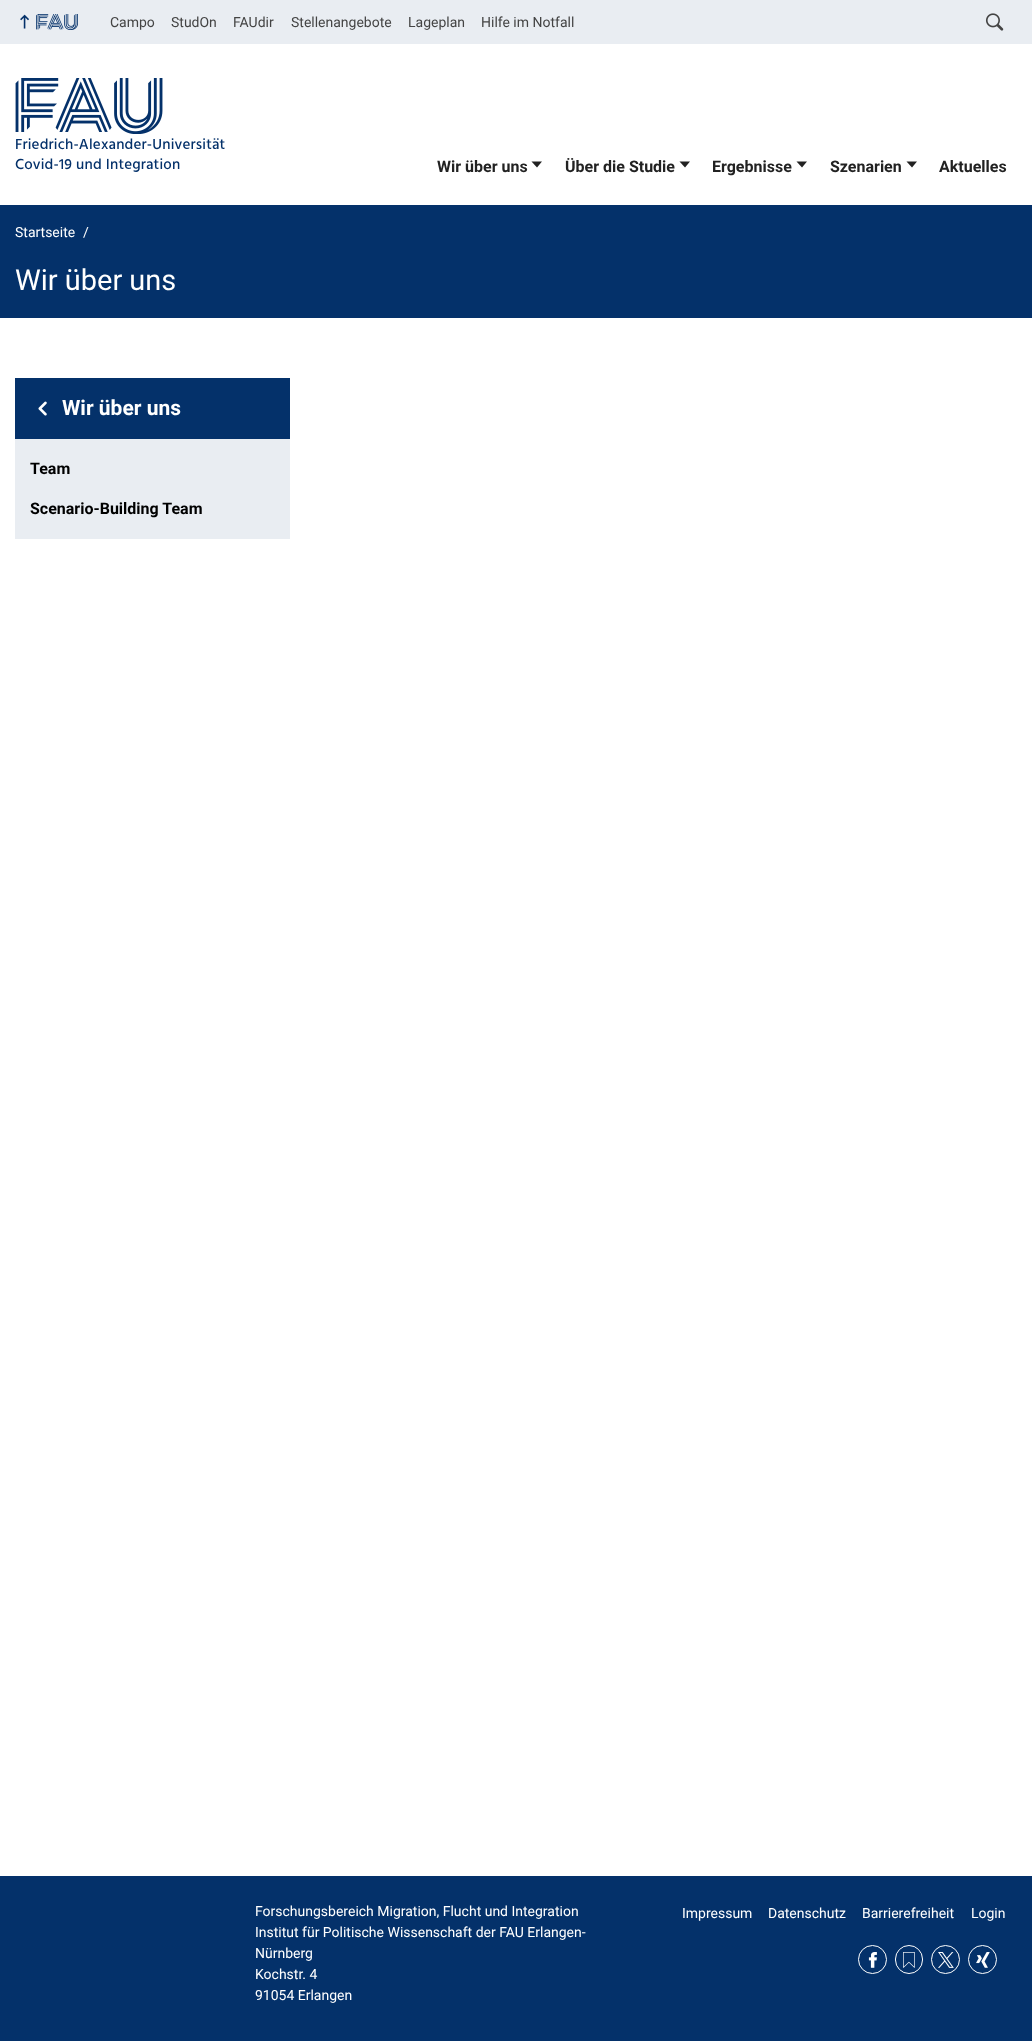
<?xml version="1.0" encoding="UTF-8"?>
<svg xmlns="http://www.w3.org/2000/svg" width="1032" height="2041">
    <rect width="100%" height="100%" fill="#FFFFFF"/>
    <rect x="0" y="0" width="1032" height="44" fill="#E9EDF2"/>
    <image x="20" y="14" width="9" height="15" href="img_01.png"/>
    <image x="36" y="14" width="42" height="16" href="img_02.png"/>
    <text x="110" y="27" font-family="Roboto" font-size="14" fill="#444444">Campo</text>
    <text x="171" y="27" font-family="Roboto" font-size="14" fill="#444444">StudOn</text>
    <text x="233" y="27" font-family="Roboto" font-size="14" fill="#444444">FAUdir</text>
    <text x="291" y="27" font-family="Roboto" font-size="14" fill="#444444">Stellenangebote</text>
    <text x="408" y="27" font-family="Roboto" font-size="14" fill="#444444">Lageplan</text>
    <text x="481" y="27" font-family="Roboto" font-size="14" fill="#444444">Hilfe im Notfall</text>
    <image x="985" y="13" width="19" height="18" href="img_03.png"/>
    <image x="15" y="78" width="148" height="56" href="img_04.png"/>
    <text font-family="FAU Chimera" font-size="15" font-weight="500" letter-spacing="0.2" fill="#04316A">
        <tspan x="15" y="149">Friedrich-Alexander-Universität</tspan>
        <tspan x="15" y="169">Covid-19 und Integration</tspan>
    </text>
    <text x="437" y="172" font-family="Roboto" font-size="16" font-weight="700" fill="#222222">Wir über uns</text>
    <path d="M 531.5 161.5 L 537 167.5 L 542 161.5 Z" fill="#222222"/>
    <text x="565" y="172" font-family="Roboto" font-size="16" font-weight="700" fill="#222222">Über die Studie</text>
    <path d="M 679.5 161.5 L 685 167.5 L 690 161.5 Z" fill="#222222"/>
    <text x="712" y="172" font-family="Roboto" font-size="16" font-weight="700" fill="#222222">Ergebnisse</text>
    <path d="M 796.5 161.5 L 802 167.5 L 807 161.5 Z" fill="#222222"/>
    <text x="830" y="172" font-family="Roboto" font-size="16" font-weight="700" fill="#222222">Szenarien</text>
    <path d="M 906.5 161.5 L 912 167.5 L 917 161.5 Z" fill="#222222"/>
    <text x="939" y="172" font-family="Roboto" font-size="16" font-weight="700" fill="#222222">Aktuelles</text>
    <rect x="0" y="205" width="1032" height="113" fill="#04316A"/>
    <text x="15" y="237" font-family="Roboto" font-size="14" fill="#FFFFFF">Startseite</text>
    <text x="83" y="237" font-family="Roboto" font-size="14" fill="#FFFFFF">/</text>
    <text x="15" y="290" font-family="Roboto" font-size="29" fill="#FFFFFF">Wir über uns</text>
    <rect x="15" y="378" width="275" height="61" fill="#04316A"/>
    <image x="38" y="401" width="9" height="15" href="img_05.png"/>
    <text x="62" y="415" font-family="'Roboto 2'" font-size="21" font-weight="700" fill="#FFFFFF">Wir über uns</text>
    <rect x="15" y="439" width="275" height="100" fill="#E9EDF2"/>
    <text x="30" y="474" font-family="'Roboto 2'" font-size="16" font-weight="700" fill="#000000">Team</text>
    <text x="30" y="514" font-family="'Roboto 2'" font-size="16" font-weight="700" fill="#000000">Scenario-Building Team</text>
    <rect x="0" y="1876" width="1032" height="165" fill="#04316A"/>
    <text font-family="Roboto" font-size="14" fill="#FFFFFF">
        <tspan x="255" y="1916">Forschungsbereich Migration, Flucht und Integration</tspan>
        <tspan x="255" y="1937">Institut für Politische Wissenschaft der FAU Erlangen-</tspan>
        <tspan x="255" y="1958">Nürnberg</tspan>
        <tspan x="255" y="1979">Kochstr. 4</tspan>
        <tspan x="255" y="2000">91054 Erlangen</tspan>
    </text>
    <text x="682" y="1918" font-family="Roboto" font-size="14" fill="#FFFFFF">Impressum</text>
    <text x="768" y="1918" font-family="Roboto" font-size="14" fill="#FFFFFF">Datenschutz</text>
    <text x="862" y="1918" font-family="Roboto" font-size="14" fill="#FFFFFF">Barrierefreiheit</text>
    <text x="971" y="1918" font-family="Roboto" font-size="14" fill="#FFFFFF">Login</text>
    <circle cx="872.5" cy="1959.5" r="14" fill="none" stroke="#FFFFFF"/>
    <image x="868" y="1952" width="9" height="16" href="img_06.png"/>
    <rect x="895.5" y="1945.5" width="27" height="28" rx="13.5" fill="none" stroke="#FFFFFF"/>
    <image x="903" y="1952" width="12" height="16" href="img_07.png"/>
    <circle cx="945.5" cy="1959.5" r="14" fill="none" stroke="#FFFFFF"/>
    <image x="938" y="1952" width="16" height="16" href="img_08.png"/>
    <circle cx="982.5" cy="1959.5" r="14" fill="none" stroke="#FFFFFF"/>
    <image x="976" y="1952" width="14" height="16" href="img_09.png"/>
</svg>
